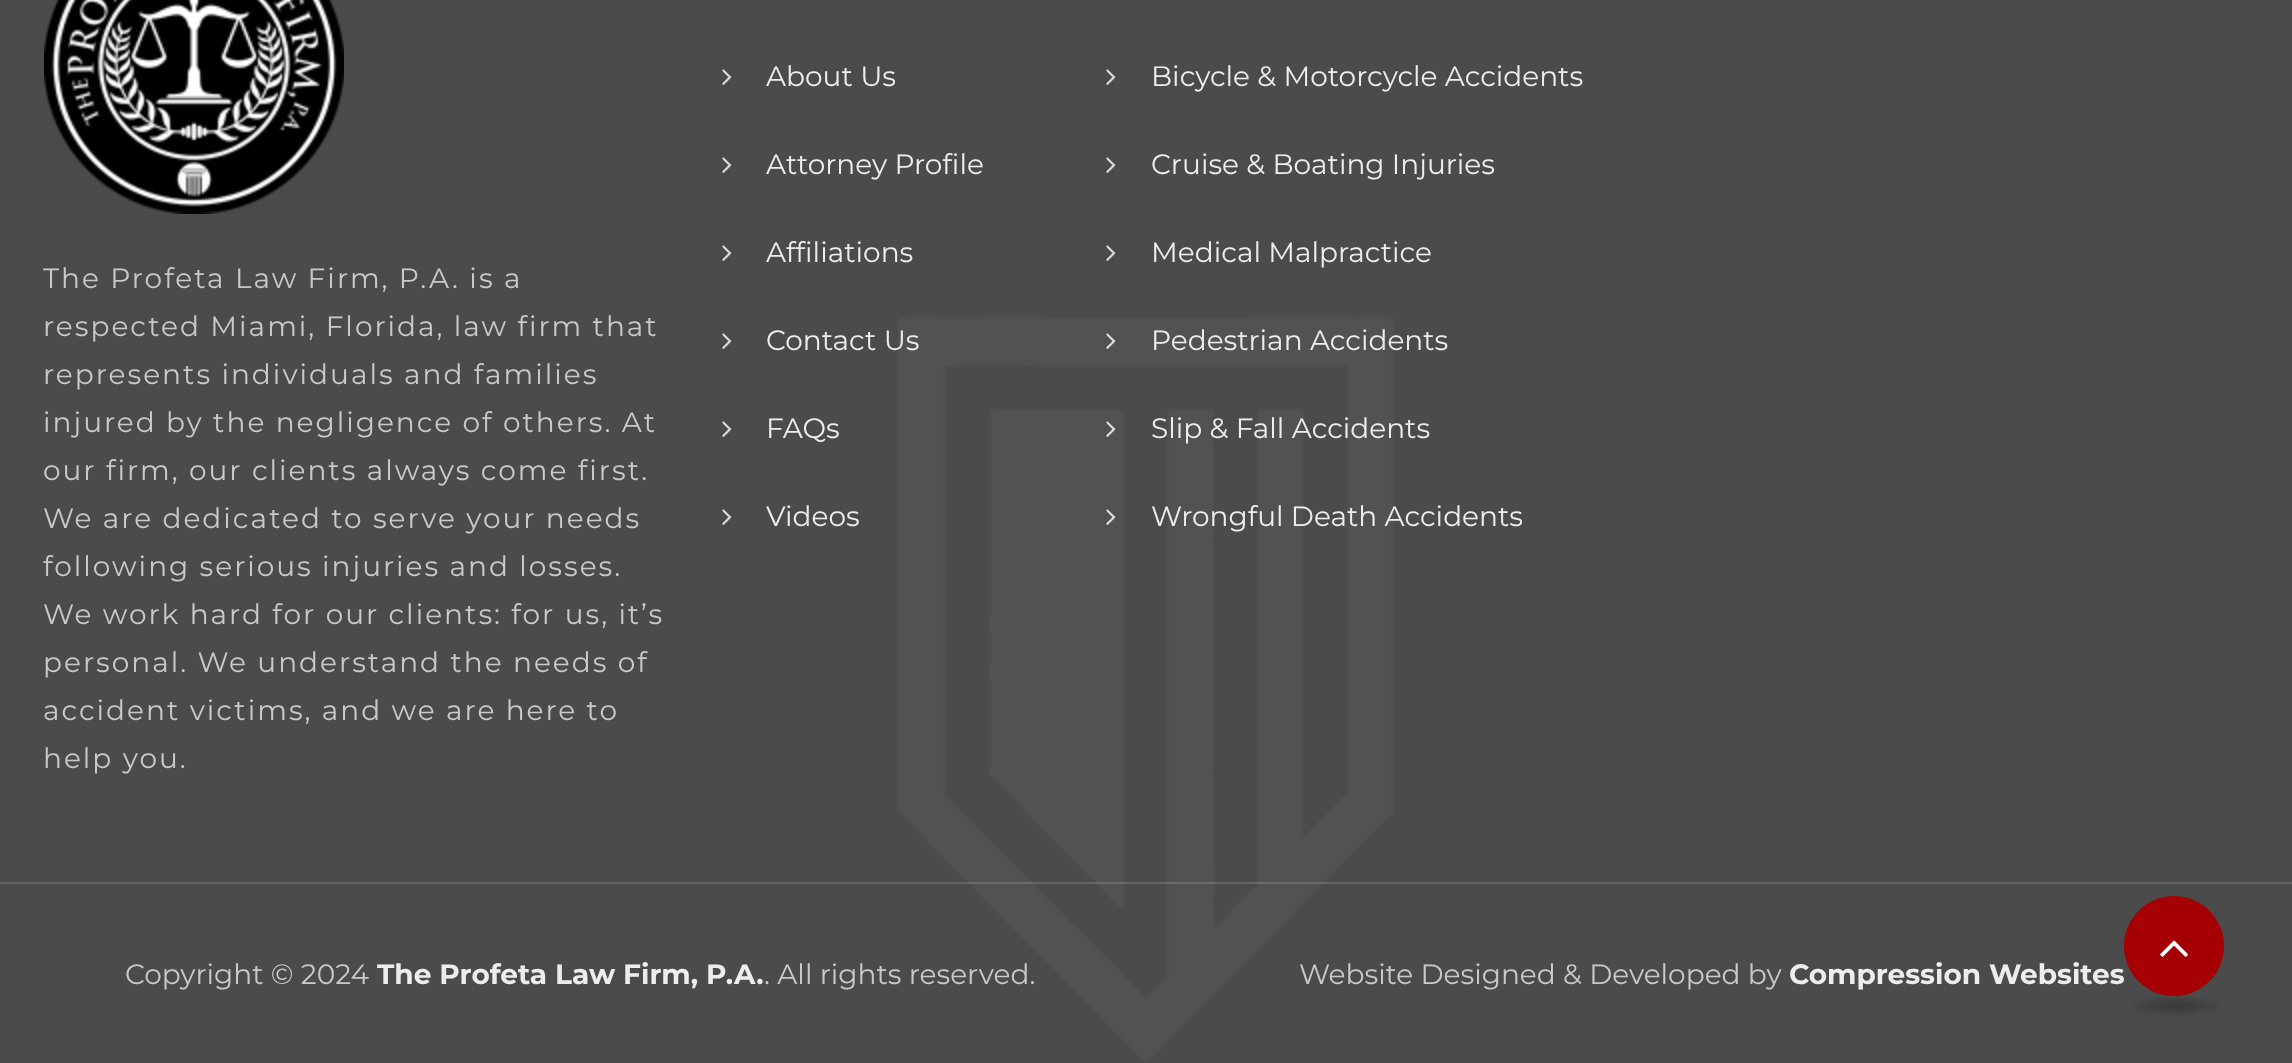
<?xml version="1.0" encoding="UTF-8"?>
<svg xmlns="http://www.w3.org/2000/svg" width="2292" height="1063">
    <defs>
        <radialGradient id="g1" gradientUnits="userSpaceOnUse" cx="0" cy="0" r="1" gradientTransform="matrix(64 0 0 14 2175 1006)"><stop offset="0" stop-color="#383838"/><stop offset="0.8" stop-color="#4A4B4A"/></radialGradient>
    </defs>
    <rect width="100%" height="100%" fill="#4A4B4A"/>
    <image x="898" y="316" width="496" height="747" href="img_01.png"/>
    <image x="44" y="0" width="300" height="214" href="img_02.png"/>
    <text font-family="Montserrat" font-size="28" letter-spacing="2" fill="#C9C9C9">
        <tspan x="43" y="288">The Profeta Law Firm, P.A. is a</tspan>
        <tspan x="43" y="336">respected Miami, Florida, law firm that</tspan>
        <tspan x="43" y="384">represents individuals and families</tspan>
        <tspan x="43" y="432">injured by the negligence of others. At</tspan>
        <tspan x="43" y="480">our firm, our clients always come first.</tspan>
        <tspan x="43" y="528">We are dedicated to serve your needs</tspan>
        <tspan x="43" y="576">following serious injuries and losses.</tspan>
        <tspan x="43" y="624">We work hard for our clients: for us, it’s</tspan>
        <tspan x="43" y="672">personal. We understand the needs of</tspan>
        <tspan x="43" y="720">accident victims, and we are here to</tspan>
        <tspan x="43" y="768">help you.</tspan>
    </text>
    <image x="722" y="69" width="10" height="16" href="img_03.png"/>
    <text x="766" y="86" font-family="Montserrat" font-size="28" fill="#EDEDED">About Us</text>
    <image x="722" y="157" width="10" height="16" href="img_03.png"/>
    <text x="766" y="174" font-family="Montserrat" font-size="28" fill="#EDEDED">Attorney Profile</text>
    <image x="722" y="245" width="10" height="16" href="img_03.png"/>
    <text x="766" y="262" font-family="Montserrat" font-size="28" fill="#EDEDED">Affiliations</text>
    <image x="722" y="333" width="10" height="16" href="img_03.png"/>
    <text x="766" y="350" font-family="Montserrat" font-size="28" fill="#EDEDED">Contact Us</text>
    <image x="722" y="421" width="10" height="16" href="img_03.png"/>
    <text x="766" y="438" font-family="Montserrat" font-size="28" fill="#EDEDED">FAQs</text>
    <image x="722" y="509" width="10" height="16" href="img_03.png"/>
    <text x="766" y="526" font-family="Montserrat" font-size="28" fill="#EDEDED">Videos</text>
    <image x="1106" y="69" width="10" height="16" href="img_03.png"/>
    <text x="1151" y="86" font-family="Montserrat" font-size="28" fill="#EDEDED">Bicycle &amp; Motorcycle Accidents</text>
    <image x="1106" y="157" width="10" height="16" href="img_03.png"/>
    <text x="1151" y="174" font-family="Montserrat" font-size="28" fill="#EDEDED">Cruise &amp; Boating Injuries</text>
    <image x="1106" y="245" width="10" height="16" href="img_03.png"/>
    <text x="1151" y="262" font-family="Montserrat" font-size="28" fill="#EDEDED">Medical Malpractice</text>
    <image x="1106" y="333" width="10" height="16" href="img_04.png"/>
    <text x="1151" y="350" font-family="Montserrat" font-size="28" fill="#EDEDED">Pedestrian Accidents</text>
    <image x="1106" y="421" width="10" height="16" href="img_04.png"/>
    <text x="1151" y="438" font-family="Montserrat" font-size="28" fill="#EDEDED">Slip &amp; Fall Accidents</text>
    <image x="1106" y="509" width="10" height="16" href="img_04.png"/>
    <text x="1151" y="526" font-family="Montserrat" font-size="28" fill="#EDEDED">Wrongful Death Accidents</text>
    <rect x="0" y="882" width="2292" height="2" fill="#FFFFFF" fill-opacity="0.15"/>
    <text x="125" y="984" font-family="Montserrat" font-size="28" fill="#C9C9C9">Copyright © 2024</text>
    <text x="377" y="984" font-family="Montserrat" font-size="28" font-weight="700" fill="#EDEDED">The Profeta Law Firm, P.A.</text>
    <text x="764" y="984" font-family="Montserrat" font-size="28" fill="#C9C9C9">. All rights reserved.</text>
    <text x="1299" y="984" font-family="Montserrat" font-size="28" fill="#C9C9C9">Website Designed &amp; Developed by</text>
    <text x="1789" y="984" font-family="Montserrat" font-size="28" font-weight="700" fill="#EDEDED">Compression Websites</text>
    <circle cx="2174" cy="946" r="50" fill="#A50004"/>
    <image x="2160" y="940" width="28" height="17" href="img_05.png"/>
    <rect x="2131" y="996" width="88" height="20" fill="url(#g1)"/>
</svg>
